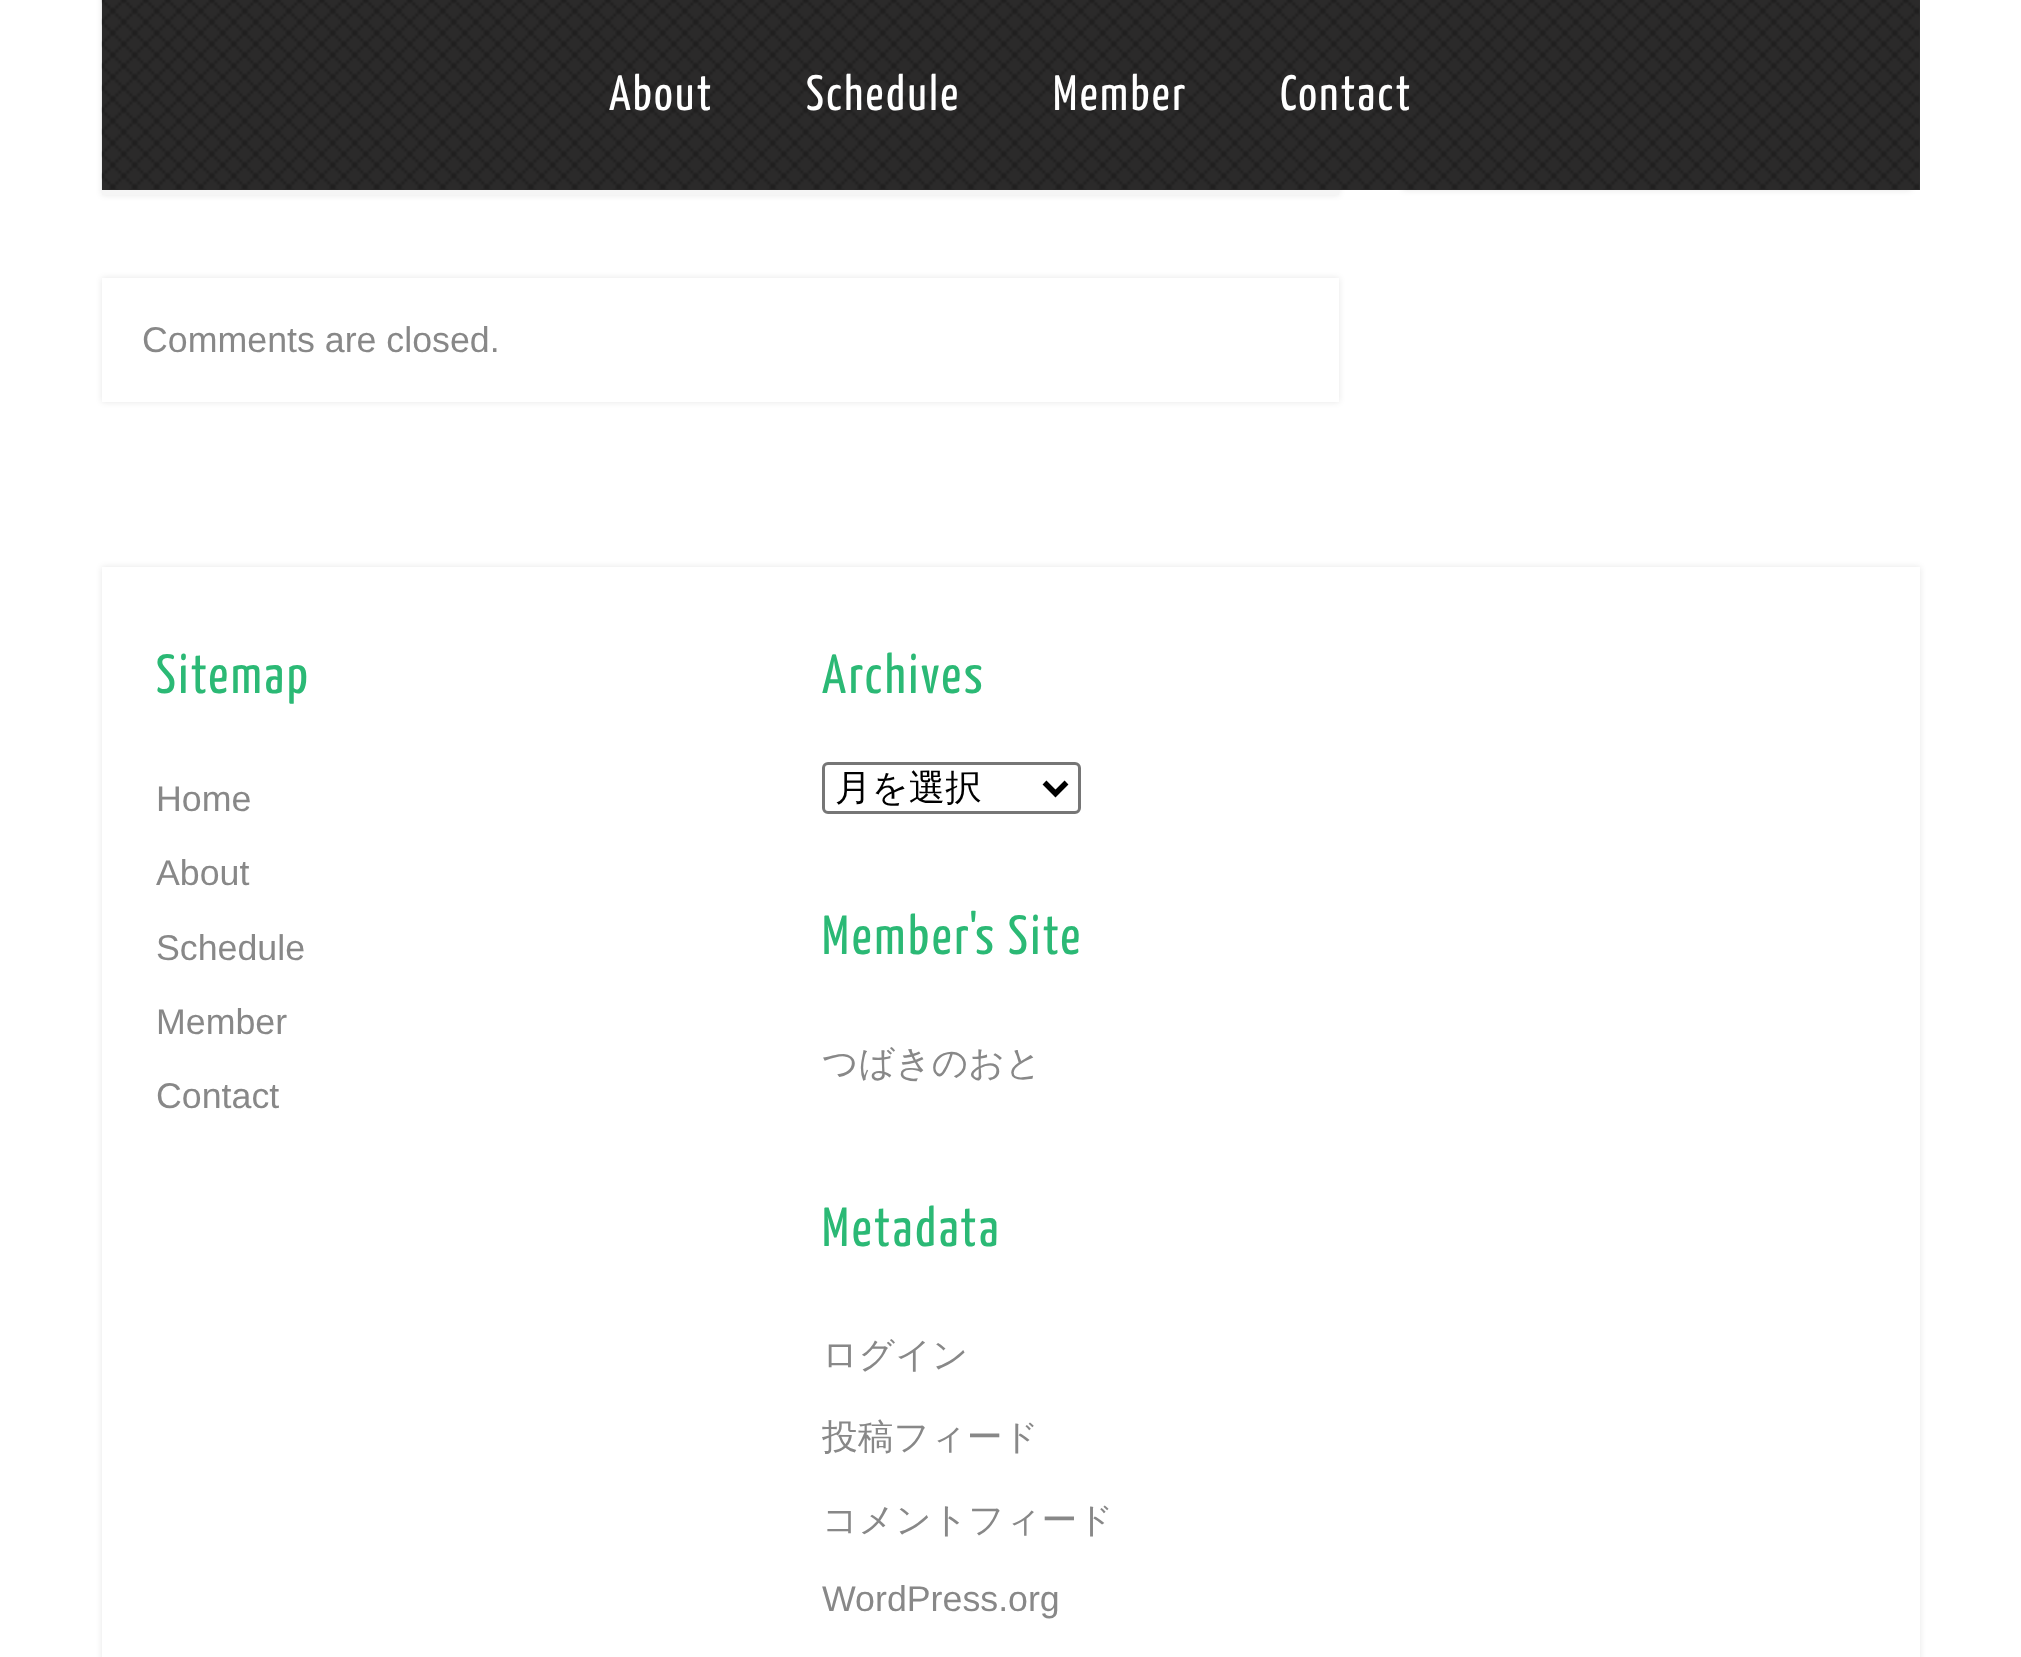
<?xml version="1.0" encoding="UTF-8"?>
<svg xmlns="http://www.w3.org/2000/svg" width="2021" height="1657">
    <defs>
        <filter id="blur1" x="-50%" y="-200%" width="200%" height="500%"><feGaussianBlur stdDeviation="3"/></filter>
    </defs>
    <rect width="100%" height="100%" fill="#FFFFFF"/>
    <rect x="1403" y="-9" width="508" height="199" fill="#000000" fill-opacity="0.1" filter="url(#blur1)"/>
    <rect x="102" y="-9" width="1237" height="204" fill="#000000" fill-opacity="0.1" filter="url(#blur1)"/>
    <rect x="102" y="0" width="1818" height="190" fill="#302F2F"/>
    <image x="101" y="0" width="1819" height="190" href="img_01.png"/>
    <text x="609" y="110" font-family="Yanone Kaffeesatz" font-size="49.5" letter-spacing="2.5" fill="#FFFFFF">About</text>
    <text x="806" y="110" font-family="Yanone Kaffeesatz" font-size="49.5" letter-spacing="2.5" fill="#FFFFFF">Schedule</text>
    <text x="1053" y="110" font-family="Yanone Kaffeesatz" font-size="49.5" letter-spacing="2.5" fill="#FFFFFF">Member</text>
    <text x="1280" y="110" font-family="Yanone Kaffeesatz" font-size="49.5" letter-spacing="2.5" fill="#FFFFFF">Contact</text>
    <rect x="102" y="190" width="1237" height="5" fill="#F5F5F5"/>
    <rect x="102" y="278" width="1237" height="124" fill="#000000" fill-opacity="0.1" filter="url(#blur1)"/>
    <rect x="102" y="278" width="1237" height="124" fill="#FFFFFF"/>
    <text x="142" y="352" font-family="Liberation Sans" font-size="35.75" fill="#888888">Comments are closed.</text>
    <rect x="102" y="567" width="1818" height="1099" fill="#000000" fill-opacity="0.1" filter="url(#blur1)"/>
    <rect x="102" y="567" width="1818" height="1090" fill="#FFFFFF"/>
    <text x="156" y="693" font-family="Yanone Kaffeesatz" font-size="55" letter-spacing="2.75" fill="#2BB975">Sitemap</text>
    <text x="156" y="811" font-family="Liberation Sans" font-size="35.75" fill="#888888">Home</text>
    <text x="156" y="885" font-family="Liberation Sans" font-size="35.75" fill="#888888">About</text>
    <text x="156" y="960" font-family="Liberation Sans" font-size="35.75" fill="#888888">Schedule</text>
    <text x="156" y="1034" font-family="Liberation Sans" font-size="35.75" fill="#888888">Member</text>
    <text x="156" y="1108" font-family="Liberation Sans" font-size="35.75" fill="#888888">Contact</text>
    <text x="822" y="693" font-family="Yanone Kaffeesatz" font-size="55" letter-spacing="2.75" fill="#2BB975">Archives</text>
    <rect x="823.5" y="763.5" width="256" height="49" rx="4.5" fill="none" stroke="#767676" stroke-width="3"/>
    <path d="M 1044.5 782.5 L 1055.5 793.5 L 1066.5 782.5" fill="none" stroke="#000000" stroke-width="5.5"/>
    <text x="835" y="800" font-family="WenQuanYi Zen Hei" font-size="36.5" font-weight="500" fill="#000000">月を選択</text>
    <text x="822" y="954" font-family="Yanone Kaffeesatz" font-size="55" letter-spacing="2.75" fill="#2BB975">Member's Site</text>
    <text x="822" y="1075" font-family="WenQuanYi Zen Hei" font-size="35.75" font-weight="500" fill="#888888">つばきのおと</text>
    <text x="822" y="1246" font-family="Yanone Kaffeesatz" font-size="55" letter-spacing="2.75" fill="#2BB975">Metadata</text>
    <text x="822" y="1367" font-family="WenQuanYi Zen Hei" font-size="35.75" font-weight="500" fill="#888888">ログイン</text>
    <text x="822" y="1449" font-family="WenQuanYi Zen Hei" font-size="35.75" font-weight="500" fill="#888888">投稿フィード</text>
    <text x="822" y="1532" font-family="WenQuanYi Zen Hei" font-size="35.75" font-weight="500" fill="#888888">コメントフィード</text>
    <text x="822" y="1611" font-family="Liberation Sans" font-size="35.75" fill="#888888">WordPress.org</text>
</svg>
